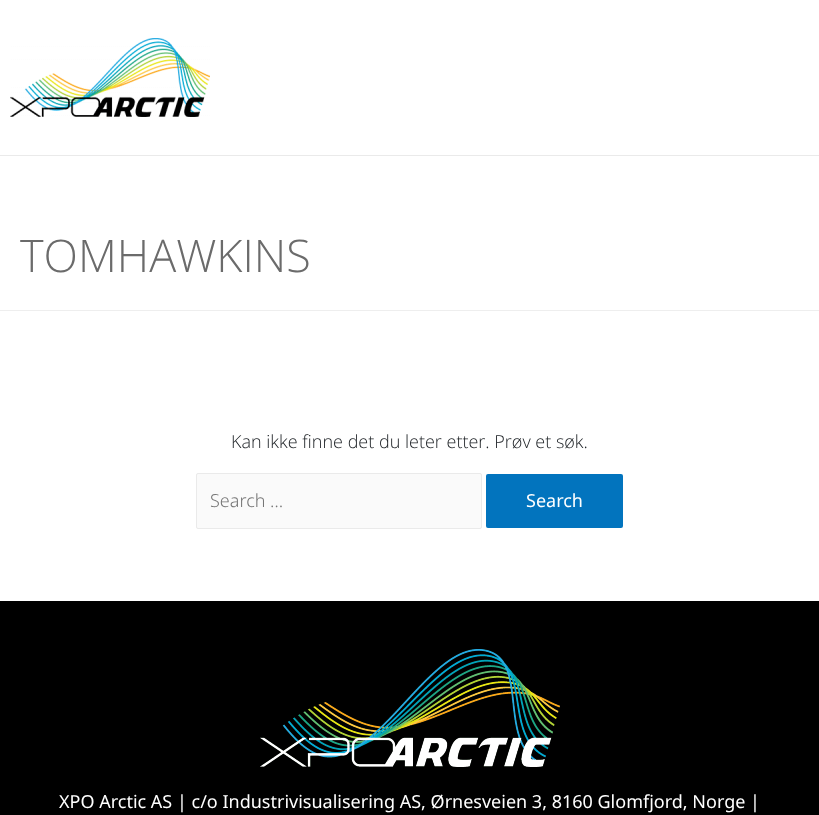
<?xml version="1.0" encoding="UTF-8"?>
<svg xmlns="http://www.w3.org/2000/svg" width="819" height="815">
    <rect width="100%" height="100%" fill="#FFFFFF"/>
    <rect x="0" y="155" width="819" height="1" fill="#EAEAEA"/>
    <image x="10" y="38" width="200" height="79" href="img_01.png"/>
    <rect x="0" y="310" width="819" height="1" fill="#EEEEEE"/>
    <text x="20" y="272" font-family="Open Sans" font-size="45" font-weight="300" fill="#6B6B6B">TOMHAWKINS</text>
    <text x="231" y="448" font-family="Open Sans" font-size="18" font-weight="300" fill="#212529">Kan ikke finne det du leter etter. Prøv et søk.</text>
    <rect x="196.5" y="473.5" width="285" height="55" rx="1.5" fill="#FAFAFA" stroke="#EAEAEA"/>
    <text x="210" y="507" font-family="Noto Sans" font-size="18" font-weight="300" fill="#757575">Search …</text>
    <rect x="486" y="474" width="137" height="54" rx="2" fill="#0274BE"/>
    <text x="526" y="507" font-family="Noto Sans" font-size="18" fill="#FFFFFF">Search</text>
    <rect x="0" y="601" width="819" height="214" fill="#000000"/>
    <image x="260" y="649" width="300" height="118" href="img_02.png"/>
    <text x="59" y="808" font-family="Noto Sans" font-size="18" fill="#FFFFFF">XPO Arctic AS | c/o Industrivisualisering AS, Ørnesveien 3, 8160 Glomfjord, Norge |</text>
</svg>
